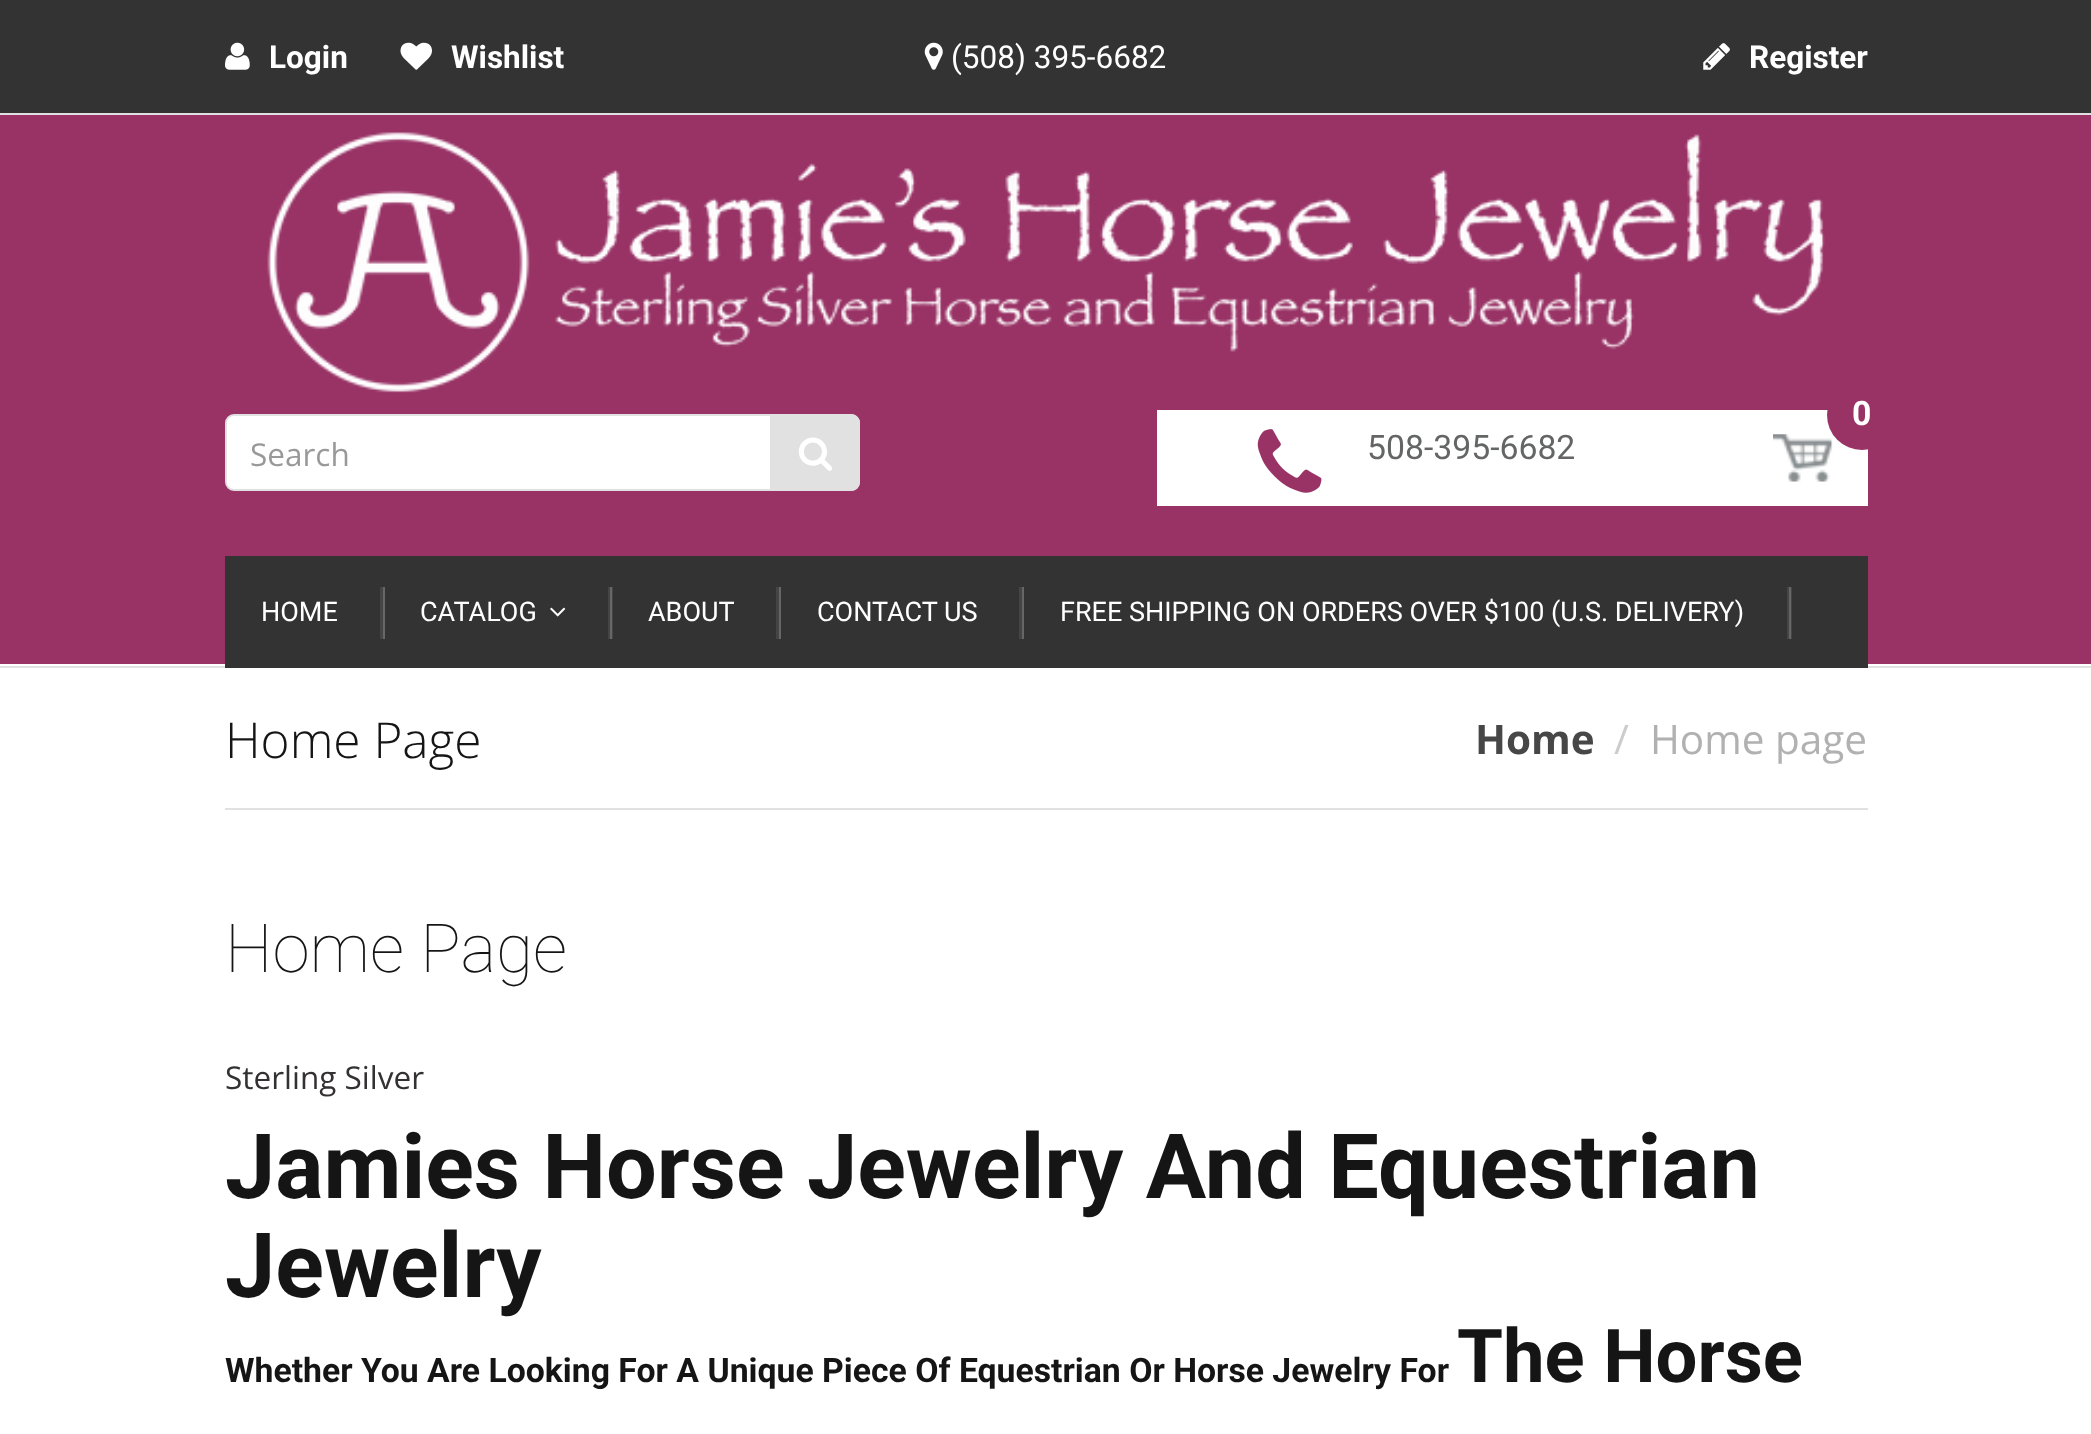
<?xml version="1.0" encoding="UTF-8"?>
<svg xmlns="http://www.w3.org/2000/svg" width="2091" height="1434">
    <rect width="100%" height="100%" fill="#FFFFFF"/>
    <rect x="0" y="115" width="2091" height="549" fill="#993366"/>
    <rect x="0" y="666" width="2091" height="2" fill="#E1E1E1"/>
    <rect x="0" y="0" width="2091" height="113" fill="#333333"/>
    <rect x="0" y="113" width="2091" height="2" fill="#E1E1E1"/>
    <image x="225" y="42" width="25" height="28" href="img_01.png"/>
    <text x="269" y="68" font-family="Roboto" font-size="31.5" font-weight="700" fill="#FFFFFF">Login</text>
    <image x="400" y="42" width="32" height="28" href="img_02.png"/>
    <text x="451" y="68" font-family="Roboto" font-size="31.5" font-weight="700" fill="#FFFFFF">Wishlist</text>
    <image x="924" y="42" width="19" height="28" href="img_03.png"/>
    <text x="951" y="68" font-family="Roboto" font-size="31.5" fill="#FFFFFF">(508) 395-6682</text>
    <image x="1703" y="43" width="27" height="27" href="img_04.png"/>
    <text x="1749" y="68" font-family="Roboto" font-size="31.5" font-weight="700" fill="#FFFFFF">Register</text>
    <image x="267" y="132" width="1558" height="261" href="img_05.png"/>
    <rect x="1157" y="410" width="711" height="96" fill="#FFFFFF"/>
    <image x="1773" y="434" width="60" height="48" href="img_06.png"/>
    <circle cx="1862" cy="415" r="35" fill="#993366"/>
    <text x="1852" y="425" font-family="Roboto" font-size="33.75" font-weight="700" fill="#FFFFFF">0</text>
    <rect x="226" y="415" width="633" height="75" rx="8" fill="#FFFFFF" stroke="#E1E1E1" stroke-width="2"/>
    <text x="250" y="466" font-family="Open Sans" font-size="31.5" fill="#999999">Search</text>
    <path d="M 770 414 H 851 C 856 414 860 418 860 423 V 482 C 860 487 856 491 851 491 H 770 Z" fill="#E1E1E1"/>
    <image x="798" y="437" width="34" height="34" href="img_07.png"/>
    <image x="1257" y="429" width="65" height="64" href="img_08.png"/>
    <text x="1367" y="459" font-family="Roboto" font-size="33.75" fill="#646565">508-395-6682</text>
    <rect x="225" y="556" width="1643" height="112" fill="#333333"/>
    <text x="261" y="621" font-family="Roboto" font-size="27" fill="#FFFFFF">HOME</text>
    <rect x="380" y="587" width="3" height="52" fill="#454545"/>
    <rect x="383" y="587" width="2" height="52" fill="#676767"/>
    <text x="420" y="621" font-family="Roboto" font-size="27" fill="#FFFFFF">CATALOG</text>
    <image x="550" y="607" width="16" height="10" href="img_09.png"/>
    <rect x="608" y="587" width="5" height="52" fill="#454545"/>
    <rect x="610" y="587" width="2" height="52" fill="#676767"/>
    <text x="648" y="621" font-family="Roboto" font-size="27" fill="#FFFFFF">ABOUT</text>
    <rect x="776" y="587" width="3" height="52" fill="#454545"/>
    <rect x="779" y="587" width="2" height="52" fill="#676767"/>
    <text x="817" y="621" font-family="Roboto" font-size="27" fill="#FFFFFF">CONTACT US</text>
    <rect x="1019" y="587" width="3" height="52" fill="#454545"/>
    <rect x="1022" y="587" width="2" height="52" fill="#676767"/>
    <text x="1060" y="621" font-family="Roboto" font-size="27" fill="#FFFFFF">FREE SHIPPING ON ORDERS OVER $100 (U.S. DELIVERY)</text>
    <rect x="1787" y="587" width="5" height="52" fill="#454545"/>
    <rect x="1789" y="587" width="2" height="52" fill="#676767"/>
    <text x="225" y="758" font-family="Open Sans" font-size="49.5" font-weight="300" fill="#151515">Home Page</text>
    <text x="1475" y="754" font-family="Open Sans" font-size="40.5" font-weight="700" fill="#484747">Home</text>
    <text x="1614" y="754" font-family="Open Sans" font-size="40.5" fill="#CCCCCC">/</text>
    <text x="1650" y="754" font-family="Open Sans" font-size="40.5" fill="#B1B1B1">Home page</text>
    <rect x="225" y="808" width="1643" height="2" fill="#E1E1E1"/>
    <text x="225" y="972" font-family="Roboto" font-size="67.5" font-weight="100" fill="#151515">Home Page</text>
    <text x="225" y="1089" font-family="Open Sans" font-size="31.5" fill="#333131">Sterling Silver</text>
    <text font-family="Roboto" font-size="90" font-weight="700" fill="#151515">
        <tspan x="225" y="1198">Jamies Horse Jewelry And Equestrian</tspan>
        <tspan x="225" y="1297">Jewelry</tspan>
    </text>
    <text x="225" y="1382" font-family="Roboto" font-size="33.75" font-weight="700" fill="#151515">Whether You Are Looking For A Unique Piece Of Equestrian Or Horse Jewelry For</text>
    <text x="1457" y="1382" font-family="Roboto" font-size="74.25" font-weight="700" fill="#151515">The Horse</text>
</svg>
